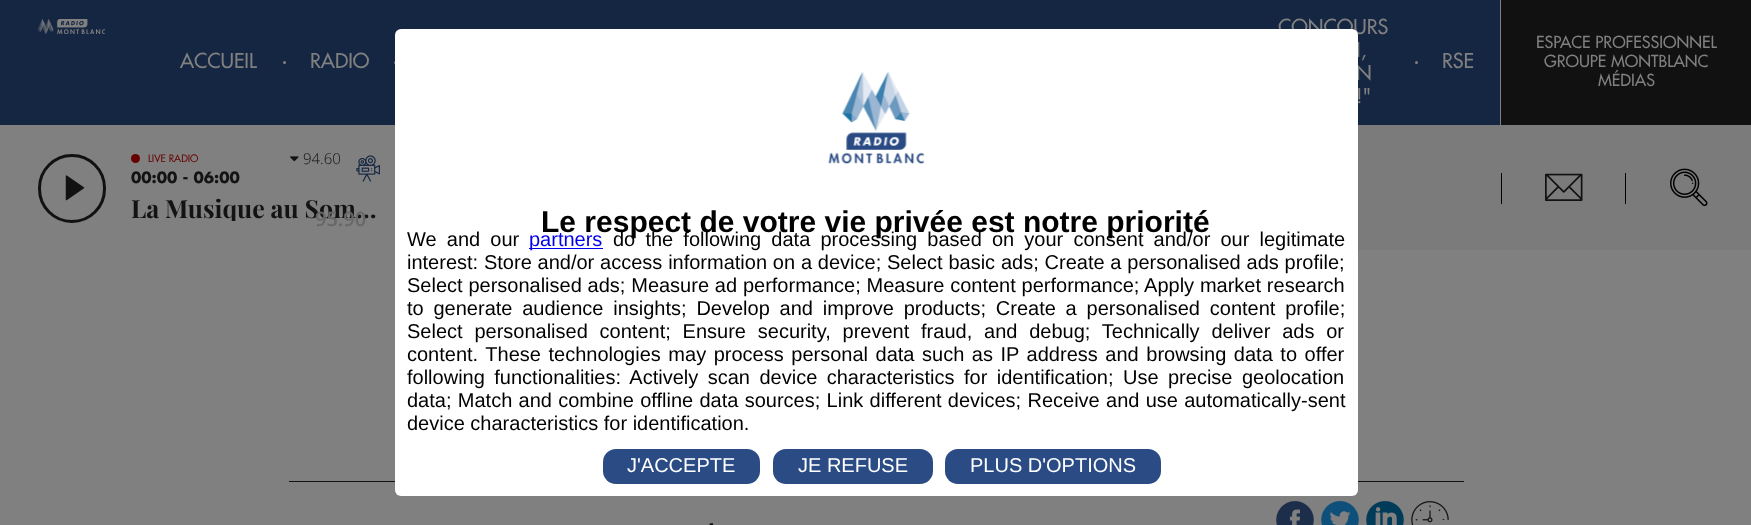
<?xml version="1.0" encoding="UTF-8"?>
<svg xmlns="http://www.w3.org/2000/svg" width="1751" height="525">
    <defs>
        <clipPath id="clip1"><rect x="131" y="193" width="250" height="28"/></clipPath>
    </defs>
    <rect width="100%" height="100%" fill="#808080"/>
    <rect x="0" y="0" width="1500" height="125" fill="#152642"/>
    <image x="38" y="19" width="67" height="15" href="img_01.png"/>
    <text x="180" y="68" font-family="Futura" font-size="20" font-weight="500" fill="#808080">ACCUEIL</text>
    <circle cx="284.5" cy="62.5" r="1.5" fill="#808080"/>
    <text x="310" y="68" font-family="Futura" font-size="20" font-weight="500" fill="#808080">RADIO</text>
    <circle cx="395.5" cy="62.5" r="1.5" fill="#808080"/>
    <text x="1278" y="34" font-family="Futura" font-size="20" font-weight="500" fill="#808080">CONCOURS</text>
    <text font-family="Futura" font-size="20" font-weight="500" fill="#808080">
        <tspan x="1356" y="57">I,</tspan>
        <tspan x="1356" y="80">N</tspan>
        <tspan x="1356" y="103">!"</tspan>
    </text>
    <circle cx="1416.5" cy="62.5" r="1.5" fill="#808080"/>
    <text x="1442" y="68" font-family="Futura" font-size="20" font-weight="500" fill="#808080">RSE</text>
    <rect x="1501" y="0" width="250" height="125" fill="#111111"/>
    <text x="1536" y="48" font-family="Futura" font-size="16.25" font-weight="500" fill="#808080">ESPACE PROFESSIONNEL</text>
    <text x="1544" y="67" font-family="Futura" font-size="16.25" font-weight="500" fill="#808080">GROUPE MONTBLANC</text>
    <text x="1598" y="86" font-family="Futura" font-size="16.25" font-weight="500" fill="#808080">MÉDIAS</text>
    <rect x="1358" y="125" width="393" height="125" fill="#7B7B7B"/>
    <rect x="39.5" y="155.5" width="65" height="66" rx="32.5" fill="none" stroke="#111111" stroke-width="3"/>
    <image x="65" y="175" width="20" height="26" href="img_02.png"/>
    <image x="290" y="156" width="9" height="6" href="img_03.png"/>
    <text x="303" y="164" font-family="Open Sans" font-size="15" font-weight="300" fill="#131313">94.60</text>
    <g clip-path="url(#clip1)">
        <text x="131" y="218" font-family="Playfair Display" font-size="25" font-weight="700" fill="#131313">La Musique au Som…</text>
    </g>
    <text x="315" y="226" font-family="Open Sans" font-size="20" font-weight="600" fill="#676767">95.90</text>
    <circle cx="135.5" cy="158.5" r="4.5" fill="#660000"/>
    <text x="148" y="162" font-family="Futura" font-size="10" font-weight="500" fill="#660000">LIVE RADIO</text>
    <text x="131" y="183" font-family="Futura" font-size="15" font-weight="700" fill="#131313">00:00 - 06:00</text>
    <image x="356" y="155" width="24" height="27" href="img_04.png"/>
    <rect x="1501" y="173" width="1" height="31" fill="#000000"/>
    <image x="1545" y="173" width="38" height="28" href="img_05.png"/>
    <rect x="1625" y="173" width="1" height="31" fill="#000000"/>
    <image x="1670" y="168" width="38" height="39" href="img_06.png"/>
    <rect x="289" y="481" width="1175" height="1" fill="#131313"/>
    <text x="709" y="528" font-family="Futura" font-size="12" font-weight="700" fill="#131313">-</text>
    <image x="1276" y="501" width="38" height="24" href="img_07.png"/>
    <image x="1321" y="501" width="38" height="24" href="img_08.png"/>
    <image x="1366" y="501" width="38" height="24" href="img_09.png"/>
    <image x="1411" y="501" width="38" height="24" href="img_10.png"/>
    <rect x="1435" y="520" width="14" height="5" fill="#808080"/>
    <rect x="395" y="29" width="963" height="467" rx="6" fill="#FFFFFF"/>
    <image x="828" y="72" width="97" height="92" href="img_11.png"/>
    <text x="541" y="232" font-family="Liberation Sans" font-size="30" font-weight="700" fill="#000000">Le respect de votre vie privée est notre priorité</text>
    <text x="407" y="246" word-spacing="4.6" font-family="Liberation Sans" font-size="20" fill="#000000">We and our</text>
    <rect x="529" y="248" width="74" height="1" fill="#0000EE"/>
    <text x="529" y="246" font-family="Liberation Sans" font-size="20" fill="#0000EE">partners</text>
    <text x="613" y="246" word-spacing="4.6" font-family="Liberation Sans" font-size="20" fill="#000000">do the following data processing based on your consent and/or our legitimate</text>
    <text font-family="Liberation Sans" font-size="20" fill="#000000">
        <tspan x="407" y="269" word-spacing="0.25">interest: Store and/or access information on a device; Select basic ads; Create a personalised ads profile;</tspan>
        <tspan x="407" y="292" word-spacing="0.25">Select personalised ads; Measure ad performance; Measure content performance; Apply market research</tspan>
        <tspan x="407" y="315" word-spacing="4.25">to generate audience insights; Develop and improve products; Create a personalised content profile;</tspan>
        <tspan x="407" y="338" word-spacing="6.25">Select personalised content; Ensure security, prevent fraud, and debug; Technically deliver ads or</tspan>
        <tspan x="407" y="361" word-spacing="2">content. These technologies may process personal data such as IP address and browsing data to offer</tspan>
        <tspan x="407" y="384" word-spacing="3.9">following functionalities: Actively scan device characteristics for identification; Use precise geolocation</tspan>
        <tspan x="407" y="407" word-spacing="0.75">data; Match and combine offline data sources; Link different devices; Receive and use automatically-sent</tspan>
        <tspan x="407" y="430">device characteristics for identification.</tspan>
    </text>
    <rect x="603" y="449" width="157" height="35" rx="13" fill="#2A4B84"/>
    <text x="627" y="472" font-family="Liberation Sans" font-size="20" fill="#FFFFFF">J'ACCEPTE</text>
    <rect x="773" y="449" width="160" height="35" rx="13" fill="#2A4B84"/>
    <text x="798" y="472" font-family="Liberation Sans" font-size="20" fill="#FFFFFF">JE REFUSE</text>
    <rect x="945" y="449" width="216" height="35" rx="13" fill="#2A4B84"/>
    <text x="970" y="472" font-family="Liberation Sans" font-size="20" fill="#FFFFFF">PLUS D'OPTIONS</text>
</svg>
